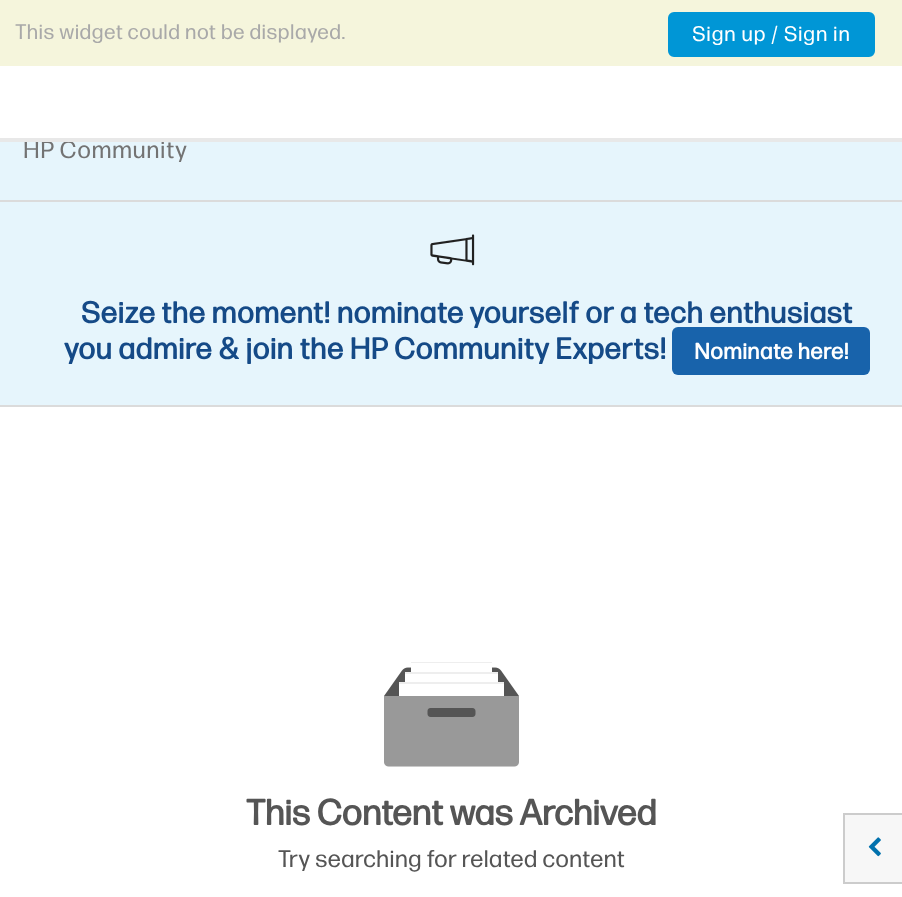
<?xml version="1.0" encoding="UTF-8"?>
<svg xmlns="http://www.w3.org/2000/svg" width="902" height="897">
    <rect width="100%" height="100%" fill="#FFFFFF"/>
    <rect x="0" y="142" width="902" height="58" fill="#E6F5FC"/>
    <text x="23" y="158" font-family="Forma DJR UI" font-size="24" letter-spacing="0.48" fill="#737373">HP Community</text>
    <rect x="0" y="138" width="902" height="4" fill="#E8E8E8"/>
    <rect x="0" y="0" width="902" height="66" fill="#F5F5DC"/>
    <text x="15" y="39" font-family="Forma DJR UI" font-size="21" font-style="italic" fill="#A9A9A9">This widget could not be displayed.</text>
    <rect x="669" y="13" width="205" height="43" rx="5" fill="#0096D6" stroke="#0096D6" stroke-width="2"/>
    <text x="692" y="41" font-family="'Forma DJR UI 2'" font-size="21" letter-spacing="0.4" fill="#FFFFFF">Sign up / Sign in</text>
    <rect x="845" y="815" width="57" height="67" fill="#F7F7F7"/>
    <rect x="843" y="813" width="59" height="2" fill="#CCCCCC"/>
    <rect x="843" y="882" width="59" height="2" fill="#CCCCCC"/>
    <rect x="843" y="813" width="2" height="71" fill="#CCCCCC"/>
    <image x="868" y="837" width="13" height="20" href="img_01.png"/>
    <rect x="0" y="202" width="902" height="203" fill="#E6F5FC"/>
    <rect x="0" y="200" width="902" height="2" fill="#DBDBDB"/>
    <rect x="0" y="405" width="902" height="2" fill="#DBDBDB"/>
    <image x="430" y="234" width="45" height="32" href="img_02.png"/>
    <text x="81" y="323" font-family="Forma DJR UI" font-size="30" font-weight="700" letter-spacing="0.48" fill="#154A87">Seize the moment! nominate yourself or a tech enthusiast</text>
    <text x="64" y="359" font-family="Forma DJR UI" font-size="30" font-weight="700" letter-spacing="0.48" fill="#154A87">you admire &amp; join the HP Community Experts!</text>
    <rect x="672" y="327" width="198" height="48" rx="6" fill="#1863AB"/>
    <text x="694" y="359" font-family="'Forma DJR UI 2'" font-size="22.5" font-weight="700" fill="#FFFFFF">Nominate here!</text>
    <image x="384" y="662" width="135" height="105" href="img_03.png"/>
    <text x="246" y="825" font-family="'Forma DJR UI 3'" font-size="36" font-weight="700" fill="#555555">This Content was Archived</text>
    <text x="278" y="867" font-family="Forma DJR UI" font-size="24" fill="#555555">Try searching for related content</text>
</svg>
